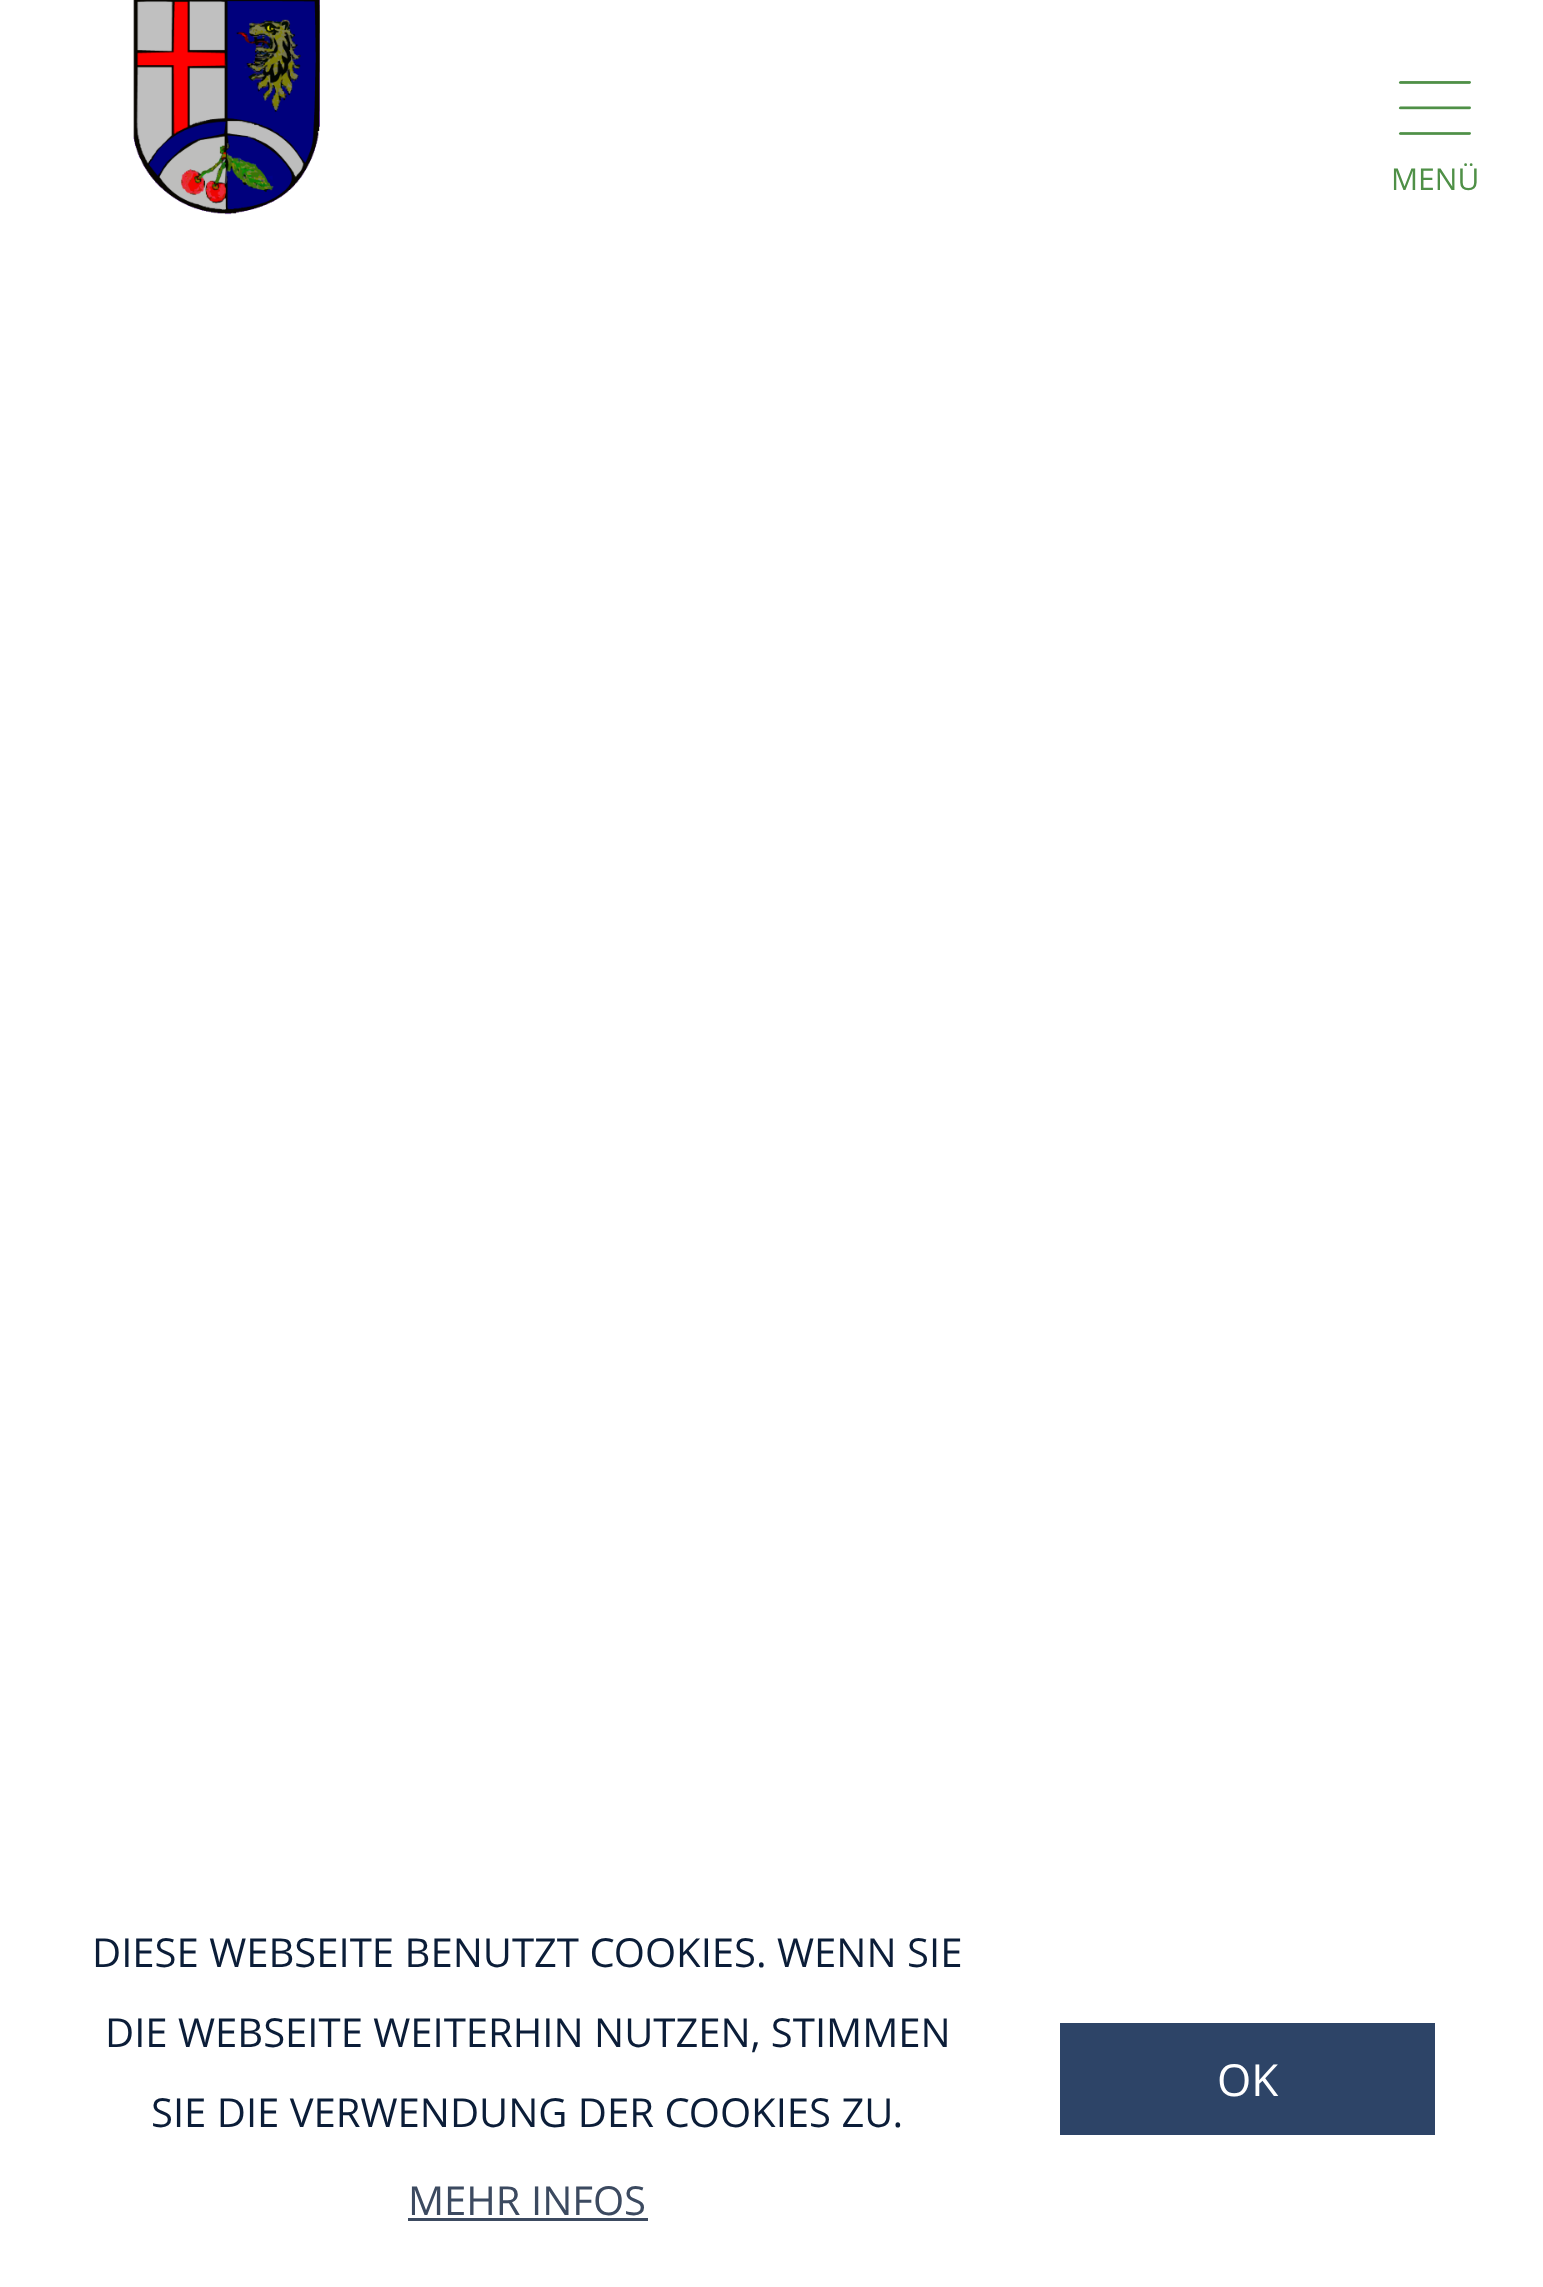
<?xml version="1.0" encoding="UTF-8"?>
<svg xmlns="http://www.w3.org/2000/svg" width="1543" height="2287">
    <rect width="100%" height="100%" fill="#FFFFFF"/>
    <image x="133" y="0" width="187" height="215" href="img_01.png"/>
    <image x="1398" y="81" width="73" height="54" href="img_02.png"/>
    <text x="1391" y="190" font-family="Open Sans" font-size="30" fill="#4F9047">MENÜ</text>
    <text x="92" y="1967" font-family="Open Sans" font-size="40" fill="#0B1D38">DIESE WEBSEITE BENUTZT COOKIES. WENN SIE</text>
    <text x="105" y="2047" font-family="Open Sans" font-size="40" fill="#0B1D38">DIE WEBSEITE WEITERHIN NUTZEN, STIMMEN</text>
    <text x="151" y="2127" font-family="Open Sans" font-size="40" fill="#0B1D38">SIE DIE VERWENDUNG DER COOKIES ZU.</text>
    <text x="408" y="2215" font-family="Open Sans" font-size="40" fill="#3C4A60">MEHR INFOS</text>
    <rect x="408" y="2218" width="240" height="3" fill="#3C4A60"/>
    <rect x="1060" y="2023" width="375" height="112" fill="#2D4467"/>
    <text x="1217" y="2096" font-family="Open Sans" font-size="44" fill="#FFFFFF">OK</text>
</svg>
